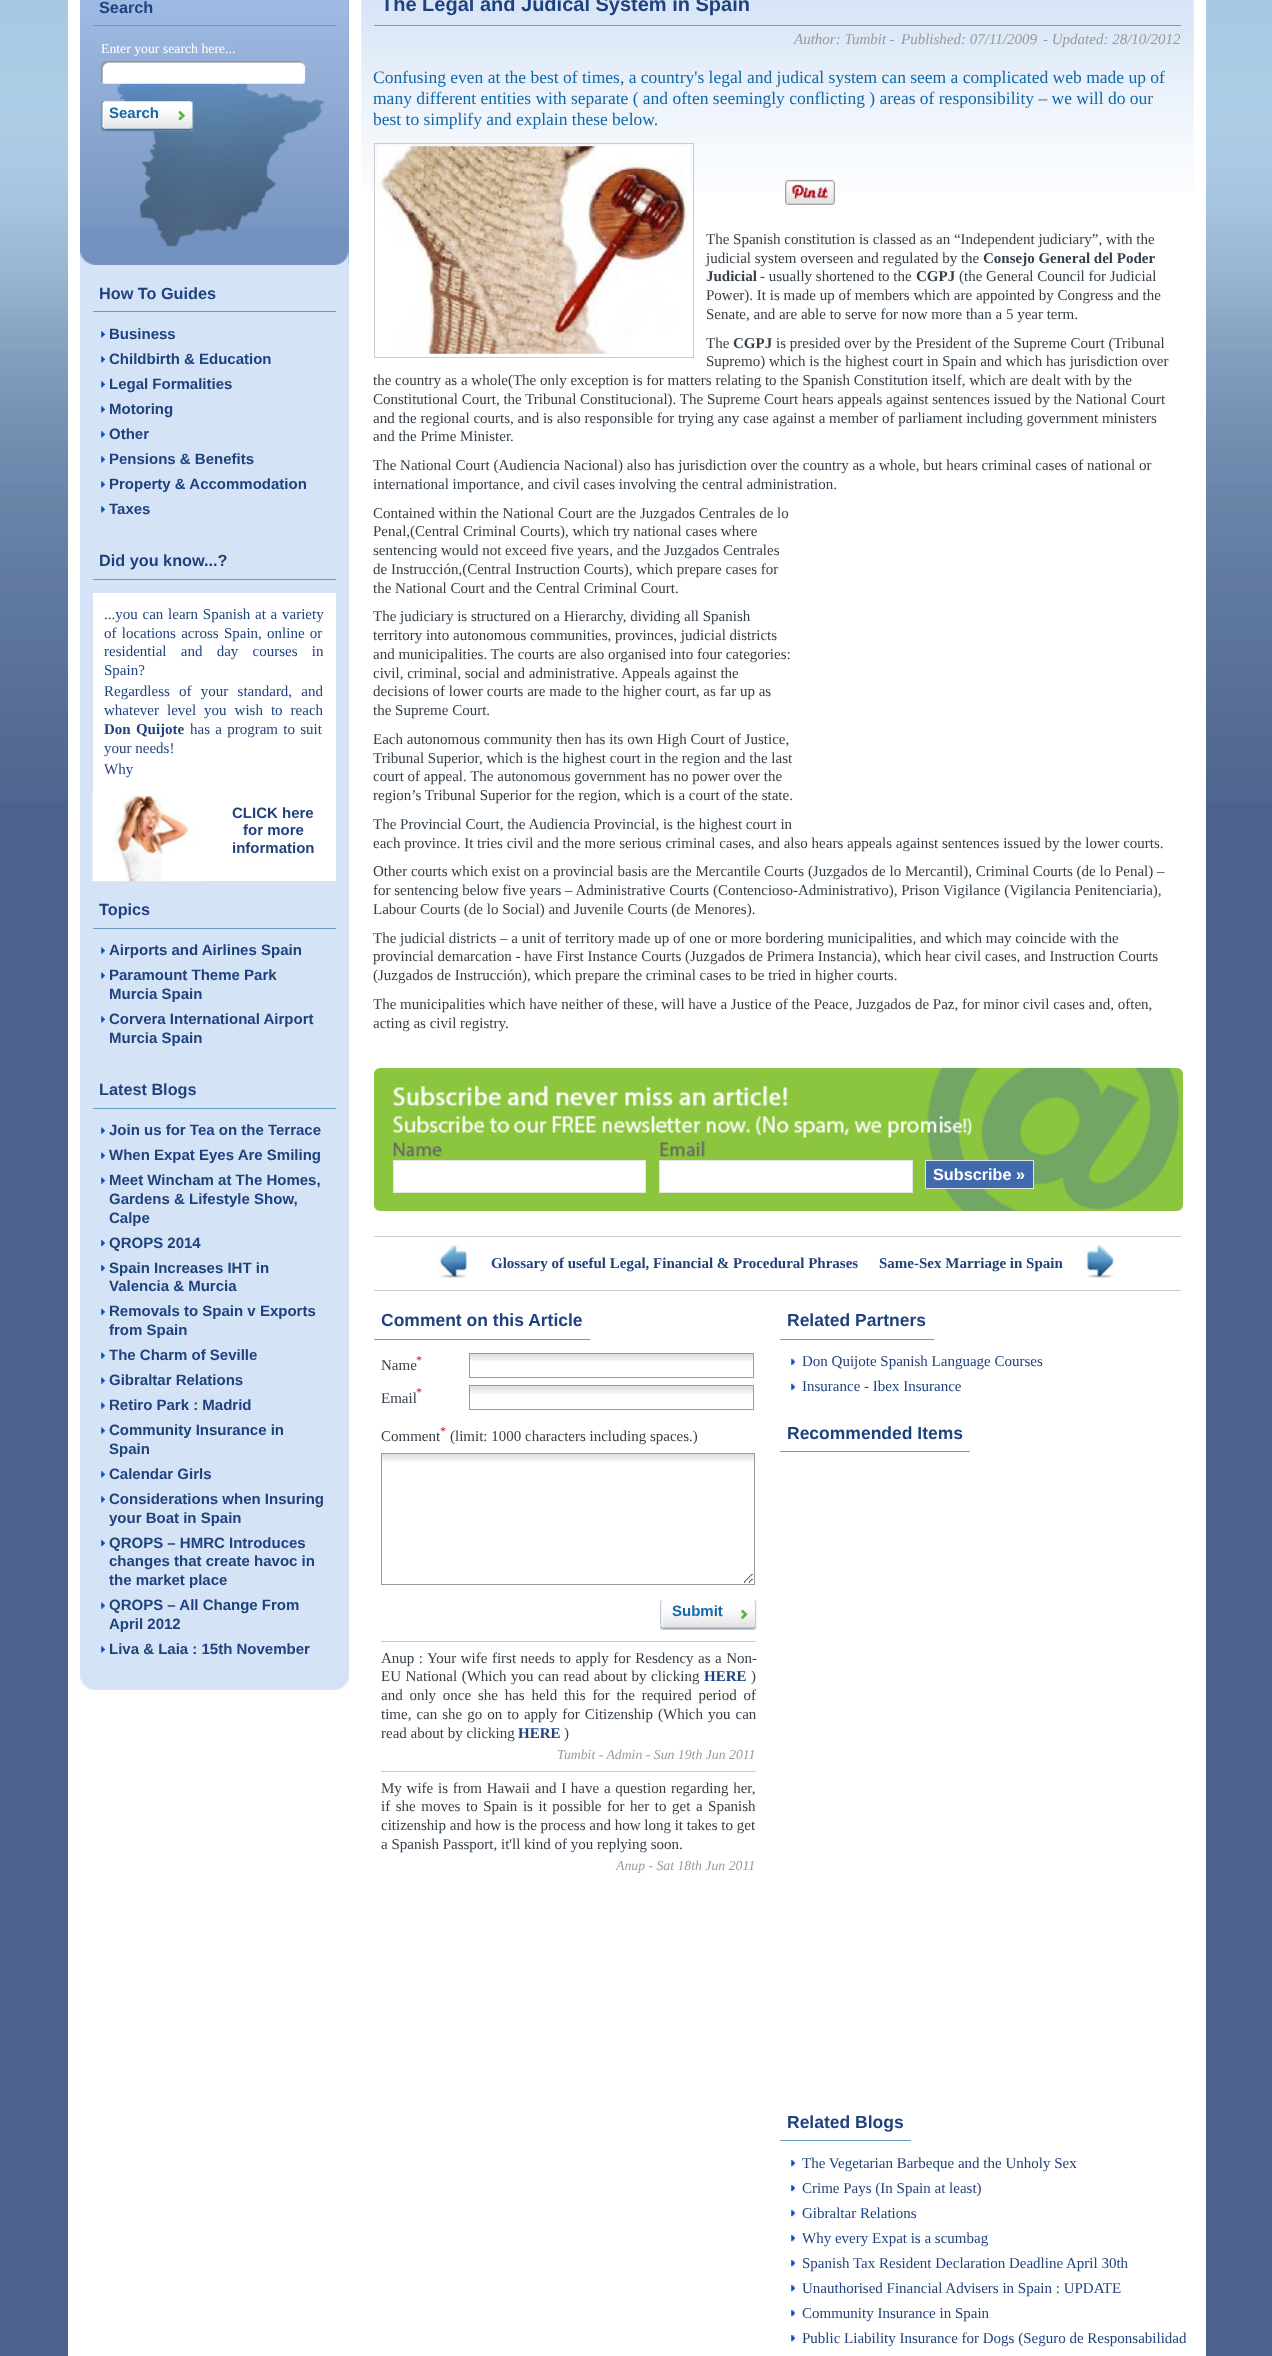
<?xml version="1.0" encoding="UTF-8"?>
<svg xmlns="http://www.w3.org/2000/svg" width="1272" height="2356">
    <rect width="100%" height="100%" fill="#4C618B"/>
    <image x="0" y="0" width="1272" height="803" href="img_01.png"/>
    <rect x="68" y="0" width="1138" height="2356" fill="#FFFFFF"/>
    <rect x="80" y="265" width="269" height="1425" fill="#D4E3F6"/>
    <rect x="80" y="0" width="269" height="265" fill="#7492BF"/>
    <image x="80" y="0" width="269" height="228" href="img_02.png"/>
    <rect x="93" y="25" width="243" height="1" fill="#699BC9"/>
    <text x="99" y="13" font-family="Liberation Sans" font-size="16.25" font-weight="700" fill="#1F427F">Search</text>
    <image x="117" y="83" width="207" height="164" href="img_03.png"/>
    <text x="101" y="53" font-family="Liberation Serif" font-size="13.75" fill="#FFFFFF">Enter your search here...</text>
    <image x="101" y="61" width="205" height="23" href="img_04.png"/>
    <image x="101" y="101" width="93" height="31" href="img_05.png"/>
    <text x="109" y="118" font-family="Liberation Sans" font-size="15" font-weight="700" fill="#1368A9">Search</text>
    <image x="80" y="251" width="15" height="14" href="img_06.png"/>
    <image x="335" y="251" width="14" height="14" href="img_07.png"/>
    <rect x="93" y="311" width="243" height="1" fill="#699BC9"/>
    <text x="99" y="299" font-family="Liberation Sans" font-size="16.25" font-weight="700" fill="#1F427F">How To Guides</text>
    <image x="101" y="331" width="4" height="7" href="img_08.png"/>
    <text x="109" y="339" font-family="Liberation Sans" font-size="15" font-weight="700" fill="#1F427F">Business</text>
    <image x="101" y="356" width="4" height="7" href="img_08.png"/>
    <text x="109" y="364" font-family="Liberation Sans" font-size="15" font-weight="700" fill="#1F427F">Childbirth &amp; Education</text>
    <image x="101" y="381" width="4" height="7" href="img_08.png"/>
    <text x="109" y="389" font-family="Liberation Sans" font-size="15" font-weight="700" fill="#1F427F">Legal Formalities</text>
    <image x="101" y="406" width="4" height="7" href="img_08.png"/>
    <text x="109" y="414" font-family="Liberation Sans" font-size="15" font-weight="700" fill="#1F427F">Motoring</text>
    <image x="101" y="431" width="4" height="7" href="img_08.png"/>
    <text x="109" y="439" font-family="Liberation Sans" font-size="15" font-weight="700" fill="#1F427F">Other</text>
    <image x="101" y="456" width="4" height="7" href="img_08.png"/>
    <text x="109" y="464" font-family="Liberation Sans" font-size="15" font-weight="700" fill="#1F427F">Pensions &amp; Benefits</text>
    <image x="101" y="481" width="4" height="7" href="img_08.png"/>
    <text x="109" y="489" font-family="Liberation Sans" font-size="15" font-weight="700" fill="#1F427F">Property &amp; Accommodation</text>
    <image x="101" y="506" width="4" height="7" href="img_08.png"/>
    <text x="109" y="514" font-family="Liberation Sans" font-size="15" font-weight="700" fill="#1F427F">Taxes</text>
    <rect x="93" y="579" width="243" height="1" fill="#699BC9"/>
    <text x="99" y="566" font-family="Liberation Sans" font-size="16.25" font-weight="700" fill="#1F427F">Did you know...?</text>
    <rect x="93" y="593" width="243" height="288" fill="#FFFFFF"/>
    <text font-family="Liberation Serif" font-size="15" fill="#1F427F">
        <tspan x="104" y="619" word-spacing="1">...you can learn Spanish at a variety</tspan>
        <tspan x="104" y="638" word-spacing="1.5">of locations across Spain, online or</tspan>
        <tspan x="104" y="656" word-spacing="10.5">residential and day courses in</tspan>
        <tspan x="104" y="675">Spain?</tspan>
        <tspan x="104" y="696" word-spacing="5.5">Regardless of your standard, and</tspan>
        <tspan x="104" y="715" word-spacing="4.25">whatever level you wish to reach</tspan>
    </text>
    <text x="104" y="734" word-spacing="1.5" font-family="Liberation Serif" font-size="15" font-weight="700" fill="#1F427F">Don Quijote</text>
    <text x="190" y="734" word-spacing="1.5" font-family="Liberation Serif" font-size="15" fill="#1F427F">has a program to suit</text>
    <text font-family="Liberation Serif" font-size="15" fill="#1F427F">
        <tspan x="104" y="753">your needs!</tspan>
        <tspan x="104" y="774">Why</tspan>
    </text>
    <image x="92" y="793" width="114" height="89" href="img_09.png"/>
    <text x="232" y="818" font-family="Liberation Sans" font-size="15" font-weight="700" fill="#1F427F">CLICK here</text>
    <text x="243" y="835" font-family="Liberation Sans" font-size="15" font-weight="700" fill="#1F427F">for more</text>
    <text x="232" y="853" font-family="Liberation Sans" font-size="15" font-weight="700" fill="#1F427F">information</text>
    <rect x="93" y="928" width="243" height="1" fill="#699BC9"/>
    <text x="99" y="915" font-family="Liberation Sans" font-size="16.25" font-weight="700" fill="#1F427F">Topics</text>
    <image x="101" y="947" width="4" height="7" href="img_10.png"/>
    <text x="109" y="955" font-family="Liberation Sans" font-size="15" font-weight="700" fill="#1F427F">Airports and Airlines Spain</text>
    <image x="101" y="972" width="4" height="7" href="img_10.png"/>
    <text font-family="Liberation Sans" font-size="15" font-weight="700" fill="#1F427F">
        <tspan x="109" y="980">Paramount Theme Park</tspan>
        <tspan x="109" y="999">Murcia Spain</tspan>
    </text>
    <image x="101" y="1016" width="4" height="7" href="img_08.png"/>
    <text font-family="Liberation Sans" font-size="15" font-weight="700" fill="#1F427F">
        <tspan x="109" y="1024">Corvera International Airport</tspan>
        <tspan x="109" y="1043">Murcia Spain</tspan>
    </text>
    <rect x="93" y="1108" width="243" height="1" fill="#699BC9"/>
    <text x="99" y="1095" font-family="Liberation Sans" font-size="16.25" font-weight="700" fill="#1F427F">Latest Blogs</text>
    <image x="101" y="1127" width="4" height="7" href="img_10.png"/>
    <text x="109" y="1135" font-family="Liberation Sans" font-size="15" font-weight="700" fill="#1F427F">Join us for Tea on the Terrace</text>
    <image x="101" y="1152" width="4" height="7" href="img_10.png"/>
    <text x="109" y="1160" font-family="Liberation Sans" font-size="15" font-weight="700" fill="#1F427F">When Expat Eyes Are Smiling</text>
    <image x="101" y="1177" width="4" height="7" href="img_10.png"/>
    <text font-family="Liberation Sans" font-size="15" font-weight="700" fill="#1F427F">
        <tspan x="109" y="1185">Meet Wincham at The Homes,</tspan>
        <tspan x="109" y="1204">Gardens &amp; Lifestyle Show,</tspan>
        <tspan x="109" y="1223">Calpe</tspan>
    </text>
    <image x="101" y="1240" width="4" height="7" href="img_11.png"/>
    <text x="109" y="1248" font-family="Liberation Sans" font-size="15" font-weight="700" fill="#1F427F">QROPS 2014</text>
    <image x="101" y="1265" width="4" height="7" href="img_11.png"/>
    <text font-family="Liberation Sans" font-size="15" font-weight="700" fill="#1F427F">
        <tspan x="109" y="1273">Spain Increases IHT in</tspan>
        <tspan x="109" y="1291">Valencia &amp; Murcia</tspan>
    </text>
    <image x="101" y="1308" width="4" height="7" href="img_12.png"/>
    <text font-family="Liberation Sans" font-size="15" font-weight="700" fill="#1F427F">
        <tspan x="109" y="1316">Removals to Spain v Exports</tspan>
        <tspan x="109" y="1335">from Spain</tspan>
    </text>
    <image x="101" y="1352" width="4" height="7" href="img_10.png"/>
    <text x="109" y="1360" font-family="Liberation Sans" font-size="15" font-weight="700" fill="#1F427F">The Charm of Seville</text>
    <image x="101" y="1377" width="4" height="7" href="img_10.png"/>
    <text x="109" y="1385" font-family="Liberation Sans" font-size="15" font-weight="700" fill="#1F427F">Gibraltar Relations</text>
    <image x="101" y="1402" width="4" height="7" href="img_10.png"/>
    <text x="109" y="1410" font-family="Liberation Sans" font-size="15" font-weight="700" fill="#1F427F">Retiro Park : Madrid</text>
    <image x="101" y="1427" width="4" height="7" href="img_10.png"/>
    <text font-family="Liberation Sans" font-size="15" font-weight="700" fill="#1F427F">
        <tspan x="109" y="1435">Community Insurance in</tspan>
        <tspan x="109" y="1454">Spain</tspan>
    </text>
    <image x="101" y="1471" width="4" height="7" href="img_08.png"/>
    <text x="109" y="1479" font-family="Liberation Sans" font-size="15" font-weight="700" fill="#1F427F">Calendar Girls</text>
    <image x="101" y="1496" width="4" height="7" href="img_08.png"/>
    <text font-family="Liberation Sans" font-size="15" font-weight="700" fill="#1F427F">
        <tspan x="109" y="1504">Considerations when Insuring</tspan>
        <tspan x="109" y="1523">your Boat in Spain</tspan>
    </text>
    <image x="101" y="1540" width="4" height="7" href="img_11.png"/>
    <text font-family="Liberation Sans" font-size="15" font-weight="700" fill="#1F427F">
        <tspan x="109" y="1548">QROPS – HMRC Introduces</tspan>
        <tspan x="109" y="1566">changes that create havoc in</tspan>
        <tspan x="109" y="1585">the market place</tspan>
    </text>
    <image x="101" y="1602" width="4" height="7" href="img_10.png"/>
    <text font-family="Liberation Sans" font-size="15" font-weight="700" fill="#1F427F">
        <tspan x="109" y="1610">QROPS – All Change From</tspan>
        <tspan x="109" y="1629">April 2012</tspan>
    </text>
    <image x="101" y="1646" width="4" height="7" href="img_08.png"/>
    <text x="109" y="1654" font-family="Liberation Sans" font-size="15" font-weight="700" fill="#1F427F">Liva &amp; Laia : 15th November</text>
    <image x="80" y="1676" width="14" height="14" href="img_13.png"/>
    <image x="335" y="1676" width="14" height="14" href="img_14.png"/>
    <image x="361" y="0" width="833" height="191" href="img_15.png"/>
    <rect x="374" y="25" width="807" height="1" fill="#699BC9"/>
    <text x="381" y="11" font-family="Liberation Sans" font-size="20" font-weight="700" fill="#1F427F">The Legal and Judical System in Spain</text>
    <text x="794" y="44" font-family="Liberation Serif" font-size="15" font-style="italic" fill="#999999">Author: Tumbit -</text>
    <text x="901" y="44" font-family="Liberation Serif" font-size="15" font-style="italic" fill="#999999">Published: 07/11/2009</text>
    <text x="1043" y="44" font-family="Liberation Serif" font-size="15" font-style="italic" fill="#999999">- Updated: 28/10/2012</text>
    <text font-family="Liberation Serif" font-size="17.5" fill="#1368A9">
        <tspan x="373" y="83">Confusing even at the best of times, a country's legal and judical system can seem a complicated web made up of</tspan>
        <tspan x="373" y="104">many different entities with separate ( and often seemingly conflicting ) areas of responsibility – we will do our</tspan>
        <tspan x="373" y="125">best to simplify and explain these below.</tspan>
    </text>
    <rect x="374.5" y="143.5" width="319" height="214" fill="none" stroke="#CCCCCC"/>
    <image x="377" y="146" width="313" height="208" href="img_16.png"/>
    <image x="785" y="180" width="50" height="25" href="img_17.png"/>
    <text font-family="Liberation Serif" font-size="15" fill="#353F48">
        <tspan x="706" y="244">The Spanish constitution is classed as an “Independent judiciary”, with the</tspan>
        <tspan x="706" y="263">judicial system overseen and regulated by the</tspan>
    </text>
    <text x="983" y="263" font-family="Liberation Serif" font-size="15" font-weight="700" fill="#353F48">Consejo General del Poder</text>
    <text x="706" y="281" font-family="Liberation Serif" font-size="15" font-weight="700" fill="#353F48">Judicial</text>
    <text x="760" y="281" font-family="Liberation Serif" font-size="15" fill="#353F48">- usually shortened to the</text>
    <text x="916" y="281" font-family="Liberation Serif" font-size="15" font-weight="700" fill="#353F48">CGPJ</text>
    <text x="959" y="281" font-family="Liberation Serif" font-size="15" fill="#353F48">(the General Council for Judicial</text>
    <text font-family="Liberation Serif" font-size="15" fill="#353F48">
        <tspan x="706" y="300">Power). It is made up of members which are appointed by Congress and the</tspan>
        <tspan x="706" y="319">Senate, and are able to serve for now more than a 5 year term.</tspan>
        <tspan x="706" y="348">The</tspan>
    </text>
    <text x="733" y="348" font-family="Liberation Serif" font-size="15" font-weight="700" fill="#353F48">CGPJ</text>
    <text x="776" y="348" font-family="Liberation Serif" font-size="15" fill="#353F48">is presided over by the President of the Supreme Court (Tribunal</text>
    <text x="706" y="366" font-family="Liberation Serif" font-size="15" fill="#353F48">Supremo) which is the highest court in Spain and which has jurisdiction over</text>
    <text font-family="Liberation Serif" font-size="15" fill="#353F48">
        <tspan x="373" y="385">the country as a whole(The only exception is for matters relating to the Spanish Constitution itself, which are dealt with by the</tspan>
        <tspan x="373" y="404">Constitutional Court, the Tribunal Constitucional). The Supreme Court hears appeals against sentences issued by the National Court</tspan>
        <tspan x="373" y="423">and the regional courts, and is also responsible for trying any case against a member of parliament including government ministers</tspan>
        <tspan x="373" y="441">and the Prime Minister.</tspan>
        <tspan x="373" y="470">The National Court (Audiencia Nacional) also has jurisdiction over the country as a whole, but hears criminal cases of national or</tspan>
        <tspan x="373" y="489">international importance, and civil cases involving the central administration.</tspan>
        <tspan x="373" y="518">Contained within the National Court are the Juzgados Centrales de lo</tspan>
        <tspan x="373" y="536">Penal,(Central Criminal Courts), which try national cases where</tspan>
        <tspan x="373" y="555">sentencing would not exceed five years, and the Juzgados Centrales</tspan>
        <tspan x="373" y="574">de Instrucción,(Central Instruction Courts), which prepare cases for</tspan>
        <tspan x="373" y="593">the National Court and the Central Criminal Court.</tspan>
        <tspan x="373" y="621">The judiciary is structured on a Hierarchy, dividing all Spanish</tspan>
        <tspan x="373" y="640">territory into autonomous communities, provinces, judicial districts</tspan>
        <tspan x="373" y="659">and municipalities. The courts are also organised into four categories:</tspan>
        <tspan x="373" y="678">civil, criminal, social and administrative. Appeals against the</tspan>
        <tspan x="373" y="696">decisions of lower courts are made to the higher court, as far up as</tspan>
        <tspan x="373" y="715">the Supreme Court.</tspan>
        <tspan x="373" y="744">Each autonomous community then has its own High Court of Justice,</tspan>
        <tspan x="373" y="763">Tribunal Superior, which is the highest court in the region and the last</tspan>
        <tspan x="373" y="781">court of appeal. The autonomous government has no power over the</tspan>
        <tspan x="373" y="800">region’s Tribunal Superior for the region, which is a court of the state.</tspan>
        <tspan x="373" y="829">The Provincial Court, the Audiencia Provincial, is the highest court in</tspan>
        <tspan x="373" y="848">each province. It tries civil and the more serious criminal cases, and also hears appeals against sentences issued by the lower courts.</tspan>
        <tspan x="373" y="876">Other courts which exist on a provincial basis are the Mercantile Courts (Juzgados de lo Mercantil), Criminal Courts (de lo Penal) –</tspan>
        <tspan x="373" y="895">for sentencing below five years – Administrative Courts (Contencioso-Administrativo), Prison Vigilance (Vigilancia Penitenciaria),</tspan>
        <tspan x="373" y="914">Labour Courts (de lo Social) and Juvenile Courts (de Menores).</tspan>
        <tspan x="373" y="943">The judicial districts – a unit of territory made up of one or more bordering municipalities, and which may coincide with the</tspan>
        <tspan x="373" y="961">provincial demarcation - have First Instance Courts (Juzgados de Primera Instancia), which hear civil cases, and Instruction Courts</tspan>
        <tspan x="373" y="980">(Juzgados de Instrucción), which prepare the criminal cases to be tried in higher courts.</tspan>
        <tspan x="373" y="1009">The municipalities which have neither of these, will have a Justice of the Peace, Juzgados de Paz, for minor civil cases and, often,</tspan>
        <tspan x="373" y="1028">acting as civil registry.</tspan>
    </text>
    <rect x="374" y="1068" width="809" height="143" rx="6" fill="#8CC63E"/>
    <image x="927" y="1067" width="253" height="144" href="img_18.png"/>
    <image x="392" y="1086" width="580" height="71" href="img_19.png"/>
    <rect x="393.5" y="1160.5" width="252" height="32" fill="#FFFFFF" stroke="#E5E5E5"/>
    <rect x="659.5" y="1160.5" width="253" height="32" fill="#FFFFFF" stroke="#E5E5E5"/>
    <rect x="925.5" y="1160.5" width="108" height="28" fill="#416AAC" stroke="#E5E5E5"/>
    <text x="933" y="1180" font-family="Liberation Sans" font-size="16.25" font-weight="700" fill="#FFFFFF">Subscribe »</text>
    <rect x="374" y="1236" width="807" height="1" fill="#CCCCCC"/>
    <rect x="374" y="1290" width="807" height="1" fill="#CCCCCC"/>
    <image x="436" y="1244" width="32" height="34" href="img_20.png"/>
    <text x="491" y="1268" font-family="Liberation Serif" font-size="15" font-weight="700" fill="#1F427F">Glossary of useful Legal, Financial &amp; Procedural Phrases</text>
    <text x="879" y="1268" font-family="Liberation Serif" font-size="15" font-weight="700" fill="#1F427F">Same-Sex Marriage in Spain</text>
    <image x="1082" y="1244" width="34" height="34" href="img_21.png"/>
    <rect x="374" y="1339" width="216" height="1" fill="#699BC9"/>
    <text x="381" y="1326" font-family="Liberation Sans" font-size="17.5" font-weight="700" fill="#1F427F">Comment on this Article</text>
    <text x="416" y="1364" font-family="Liberation Serif" font-size="12" fill="#D70000">*</text>
    <text x="381" y="1370" font-family="Liberation Serif" font-size="15" fill="#353F48">Name</text>
    <image x="468" y="1353" width="285" height="9" href="img_22.png"/>
    <rect x="469.5" y="1353.5" width="284" height="24" fill="none" stroke="#999999"/>
    <text x="416" y="1396" font-family="Liberation Serif" font-size="12" fill="#D70000">*</text>
    <text x="381" y="1403" font-family="Liberation Serif" font-size="15" fill="#353F48">Email</text>
    <image x="468" y="1386" width="285" height="8" href="img_23.png"/>
    <rect x="469.5" y="1385.5" width="284" height="24" fill="none" stroke="#999999"/>
    <text x="440" y="1435" font-family="Liberation Serif" font-size="12" fill="#D70000">*</text>
    <text x="381" y="1441" font-family="Liberation Serif" font-size="15" fill="#353F48">Comment</text>
    <text x="450" y="1441" font-family="Liberation Serif" font-size="15" fill="#353F48">(limit: 1000 characters including spaces.)</text>
    <image x="382" y="1454" width="372" height="129" href="img_24.png"/>
    <rect x="381.5" y="1453.5" width="373" height="131" fill="none" stroke="#999999"/>
    <image x="660" y="1600" width="97" height="30" href="img_25.png"/>
    <text x="672" y="1616" font-family="Liberation Sans" font-size="15" font-weight="700" fill="#1368A9">Submit</text>
    <rect x="381" y="1641" width="375" height="1" fill="#CCCCCC"/>
    <text font-family="Liberation Serif" font-size="15" fill="#353F48">
        <tspan x="381" y="1663" word-spacing="0.75">Anup : Your wife first needs to apply for Resdency as a Non-</tspan>
        <tspan x="381" y="1681" word-spacing="0.75">EU National (Which you can read about by clicking</tspan>
    </text>
    <text x="704" y="1681" font-family="Liberation Serif" font-size="15" font-weight="700" fill="#1F427F">HERE</text>
    <text x="751" y="1681" font-family="Liberation Serif" font-size="15" fill="#353F48">)</text>
    <text font-family="Liberation Serif" font-size="15" fill="#353F48">
        <tspan x="381" y="1700" word-spacing="3">and only once she has held this for the required period of</tspan>
        <tspan x="381" y="1719" word-spacing="1.25">time, can she go on to apply for Citizenship (Which you can</tspan>
        <tspan x="381" y="1738">read about by clicking</tspan>
    </text>
    <text x="518" y="1738" font-family="Liberation Serif" font-size="15" font-weight="700" fill="#1F427F">HERE</text>
    <text x="564" y="1738" font-family="Liberation Serif" font-size="15" fill="#353F48">)</text>
    <text x="557" y="1759" font-family="Liberation Serif" font-size="13.75" font-style="italic" fill="#999999">Tumbit - Admin - Sun 19th Jun 2011</text>
    <rect x="381" y="1771" width="375" height="1" fill="#CCCCCC"/>
    <text font-family="Liberation Serif" font-size="15" fill="#353F48">
        <tspan x="381" y="1793" word-spacing="1">My wife is from Hawaii and I have a question regarding her,</tspan>
        <tspan x="381" y="1811" word-spacing="1.8">if she moves to Spain is it possible for her to get a Spanish</tspan>
        <tspan x="381" y="1830">citizenship and how is the process and how long it takes to get</tspan>
        <tspan x="381" y="1849">a Spanish Passport, it'll kind of you replying soon.</tspan>
    </text>
    <text x="616" y="1870" font-family="Liberation Serif" font-size="13.75" font-style="italic" fill="#999999">Anup - Sat 18th Jun 2011</text>
    <rect x="780" y="1339" width="154" height="1" fill="#699BC9"/>
    <text x="787" y="1326" font-family="Liberation Sans" font-size="17.5" font-weight="700" fill="#1F427F">Related Partners</text>
    <image x="791" y="1358" width="4" height="7" href="img_26.png"/>
    <text x="802" y="1366" font-family="Liberation Serif" font-size="15" fill="#1F427F">Don Quijote Spanish Language Courses</text>
    <image x="791" y="1383" width="4" height="7" href="img_26.png"/>
    <text x="802" y="1391" font-family="Liberation Serif" font-size="15" fill="#1F427F">Insurance - Ibex Insurance</text>
    <rect x="780" y="1451" width="190" height="1" fill="#699BC9"/>
    <text x="787" y="1439" font-family="Liberation Sans" font-size="17.5" font-weight="700" fill="#1F427F">Recommended Items</text>
    <rect x="780" y="2140" width="131" height="1" fill="#699BC9"/>
    <text x="787" y="2128" font-family="Liberation Sans" font-size="17.5" font-weight="700" fill="#1F427F">Related Blogs</text>
    <image x="791" y="2160" width="4" height="7" href="img_27.png"/>
    <text x="802" y="2168" font-family="Liberation Serif" font-size="15" fill="#1F427F">The Vegetarian Barbeque and the Unholy Sex</text>
    <image x="791" y="2185" width="4" height="7" href="img_27.png"/>
    <text x="802" y="2193" font-family="Liberation Serif" font-size="15" fill="#1F427F">Crime Pays (In Spain at least)</text>
    <image x="791" y="2210" width="4" height="7" href="img_27.png"/>
    <text x="802" y="2218" font-family="Liberation Serif" font-size="15" fill="#1F427F">Gibraltar Relations</text>
    <image x="791" y="2235" width="4" height="7" href="img_27.png"/>
    <text x="802" y="2243" font-family="Liberation Serif" font-size="15" fill="#1F427F">Why every Expat is a scumbag</text>
    <image x="791" y="2260" width="4" height="7" href="img_27.png"/>
    <text x="802" y="2268" font-family="Liberation Serif" font-size="15" fill="#1F427F">Spanish Tax Resident Declaration Deadline April 30th</text>
    <image x="791" y="2285" width="4" height="7" href="img_27.png"/>
    <text x="802" y="2293" font-family="Liberation Serif" font-size="15" fill="#1F427F">Unauthorised Financial Advisers in Spain : UPDATE</text>
    <image x="791" y="2310" width="4" height="7" href="img_27.png"/>
    <text x="802" y="2318" font-family="Liberation Serif" font-size="15" fill="#1F427F">Community Insurance in Spain</text>
    <image x="791" y="2335" width="4" height="7" href="img_27.png"/>
    <text x="802" y="2343" font-family="Liberation Serif" font-size="15" fill="#1F427F">Public Liability Insurance for Dogs (Seguro de Responsabilidad</text>
</svg>
